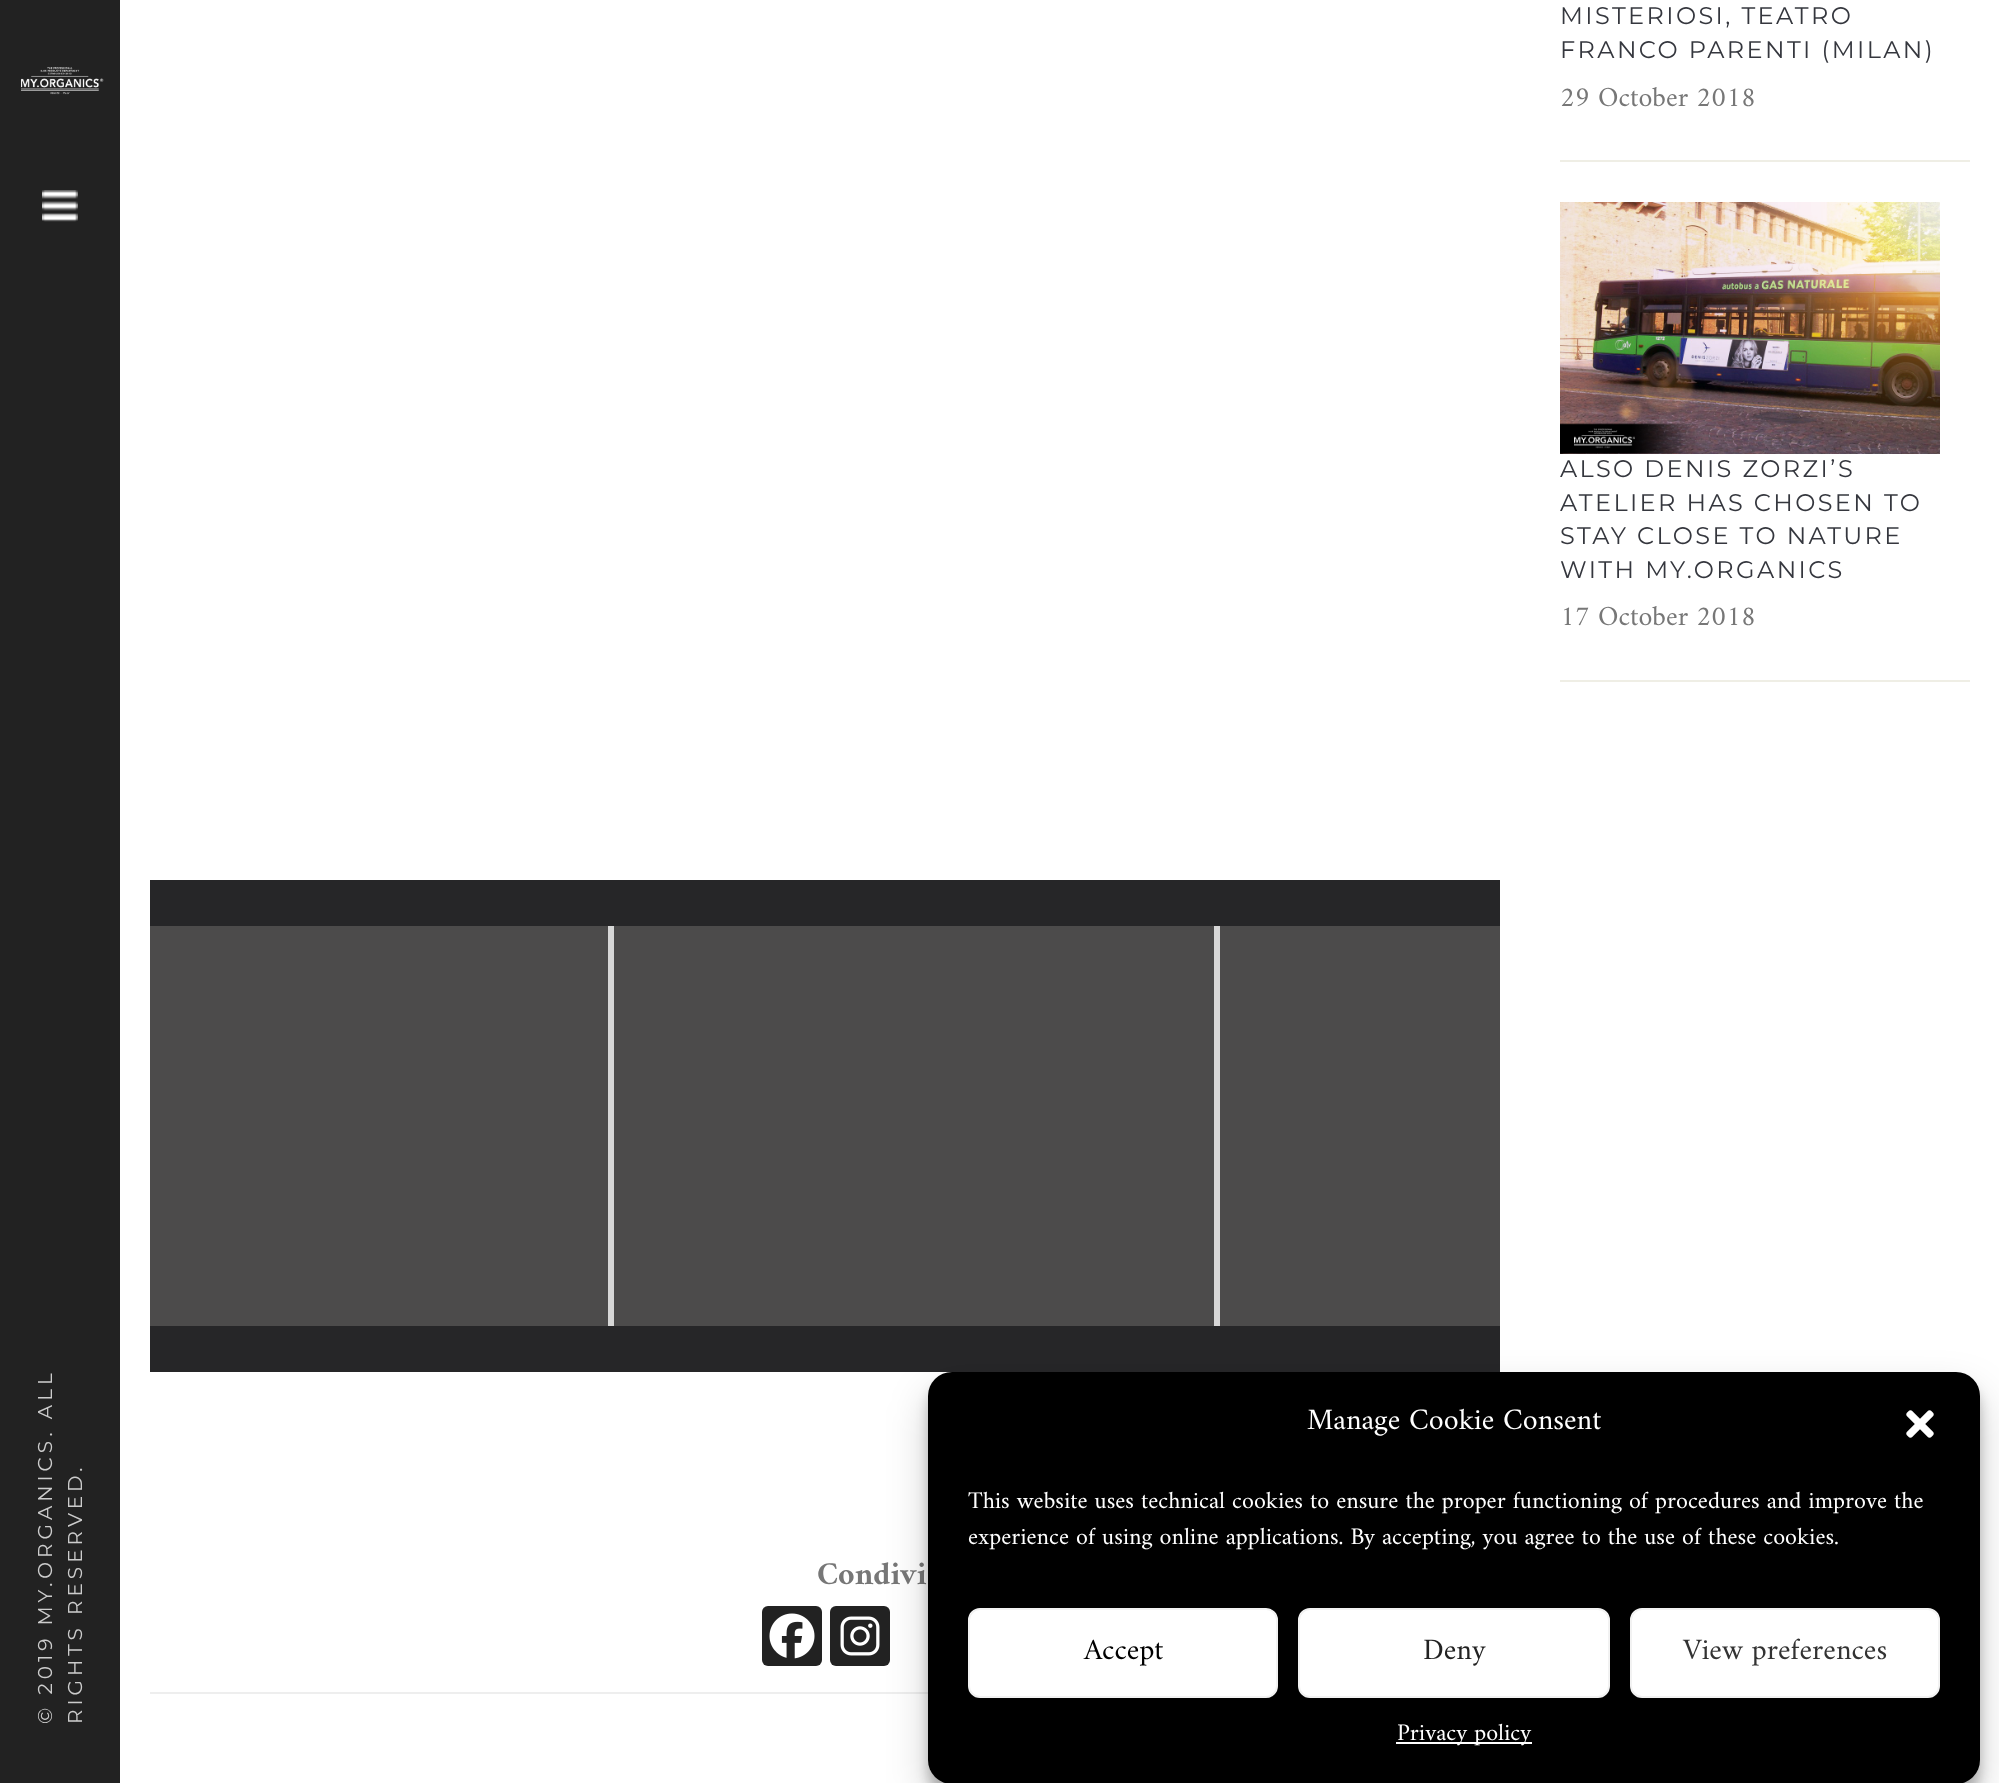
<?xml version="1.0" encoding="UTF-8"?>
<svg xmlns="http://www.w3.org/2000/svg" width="1999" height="1783">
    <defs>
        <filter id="blur1" x="-50%" y="-200%" width="200%" height="500%"><feGaussianBlur stdDeviation="6"/></filter>
        <filter id="blur2" x="-50%" y="-200%" width="200%" height="500%"><feGaussianBlur stdDeviation="20"/></filter>
    </defs>
    <rect width="100%" height="100%" fill="#FFFFFF"/>
    <rect x="0" y="0" width="120" height="1783" fill="#222222"/>
    <image x="21" y="67" width="83" height="28" href="img_01.png"/>
    <image x="42" y="190" width="36" height="32" href="img_02.png"/>
    <text x="52" y="1724" transform="rotate(-90 52 1724)" font-family="Montserrat" font-size="20" letter-spacing="4" fill="#CCCCCC">© 2019 MY.ORGANICS. ALL</text>
    <text x="82" y="1724" transform="rotate(-90 82 1724)" font-family="Montserrat" font-size="20" letter-spacing="4" fill="#CCCCCC">RIGHTS RESERVED.</text>
    <rect x="1560" y="160" width="410" height="2" fill="#EFEEE5"/>
    <text font-family="Montserrat" font-size="24" letter-spacing="2.4" fill="#35373E">
        <tspan x="1560" y="24">MISTERIOSI, TEATRO</tspan>
        <tspan x="1560" y="58">FRANCO PARENTI (MILAN)</tspan>
    </text>
    <text x="1560" y="106" font-family="Amiri" font-size="28" fill="#777777">29 October 2018</text>
    <rect x="1560" y="680" width="410" height="2" fill="#EFEEE5"/>
    <image x="1560" y="202" width="380" height="252" href="img_03.png"/>
    <text font-family="Montserrat" font-size="24" letter-spacing="2.4" fill="#35373E">
        <tspan x="1560" y="477">ALSO DENIS ZORZI’S</tspan>
        <tspan x="1560" y="511">ATELIER HAS CHOSEN TO</tspan>
        <tspan x="1560" y="544">STAY CLOSE TO NATURE</tspan>
        <tspan x="1560" y="578">WITH MY.ORGANICS</tspan>
    </text>
    <text x="1560" y="625" font-family="Amiri" font-size="28" fill="#777777">17 October 2018</text>
    <rect x="150" y="1692" width="778" height="2" fill="#EEEEEE"/>
    <rect x="608" y="926" width="612" height="400" fill="#D7D7D7"/>
    <rect x="150" y="880" width="1350" height="46" fill="#262628"/>
    <rect x="150" y="926" width="458" height="400" fill="#4C4B4B"/>
    <rect x="614" y="926" width="600" height="400" fill="#4C4B4B"/>
    <rect x="1220" y="926" width="280" height="400" fill="#4C4B4B"/>
    <rect x="150" y="1326" width="1350" height="46" fill="#262628"/>
    <text x="817" y="1584" font-family="Amiri" font-size="32" font-weight="700" fill="#777777">Condivi</text>
    <rect x="762" y="1606" width="60" height="60" rx="6" fill="#222222"/>
    <image x="769" y="1613" width="46" height="46" href="img_04.png"/>
    <rect x="830" y="1606" width="60" height="60" rx="6" fill="#222222"/>
    <image x="840" y="1616" width="40" height="40" href="img_05.png"/>
    <rect x="928" y="1384" width="1052" height="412" rx="24" fill="#000000" fill-opacity="0.23" filter="url(#blur1)"/>
    <rect x="928" y="1392" width="1052" height="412" rx="24" fill="#000000" fill-opacity="0.19" filter="url(#blur2)"/>
    <rect x="928" y="1372" width="1052" height="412" rx="24" fill="#000000"/>
    <text x="1307" y="1429" font-family="Amiri" font-size="30" fill="#FFFFFF">Manage Cookie Consent</text>
    <image x="1906" y="1410" width="28" height="28" href="img_06.png"/>
    <text font-family="Amiri" font-size="24" fill="#FFFFFF">
        <tspan x="968" y="1508">This website uses technical cookies to ensure the proper functioning of procedures and improve the</tspan>
        <tspan x="968" y="1544">experience of using online applications. By accepting, you agree to the use of these cookies.</tspan>
    </text>
    <rect x="969" y="1609" width="308" height="88" rx="11" fill="#FFFFFF" stroke="#F2F2F2" stroke-width="2"/>
    <text x="1084" y="1659" font-family="Amiri" font-size="30" fill="#000000">Accept</text>
    <rect x="1299" y="1609" width="310" height="88" rx="11" fill="#FFFFFF" stroke="#F2F2F2" stroke-width="2"/>
    <text x="1423" y="1659" font-family="Amiri" font-size="30" fill="#222222">Deny</text>
    <rect x="1631" y="1609" width="308" height="88" rx="11" fill="#FFFFFF" stroke="#F2F2F2" stroke-width="2"/>
    <text x="1683" y="1659" font-family="Amiri" font-size="30" fill="#333333">View preferences</text>
    <rect x="1396" y="1742" width="136" height="2" fill="#FFFFFF"/>
    <text x="1397" y="1740" font-family="Amiri" font-size="24" fill="#FFFFFF">Privacy policy</text>
</svg>
